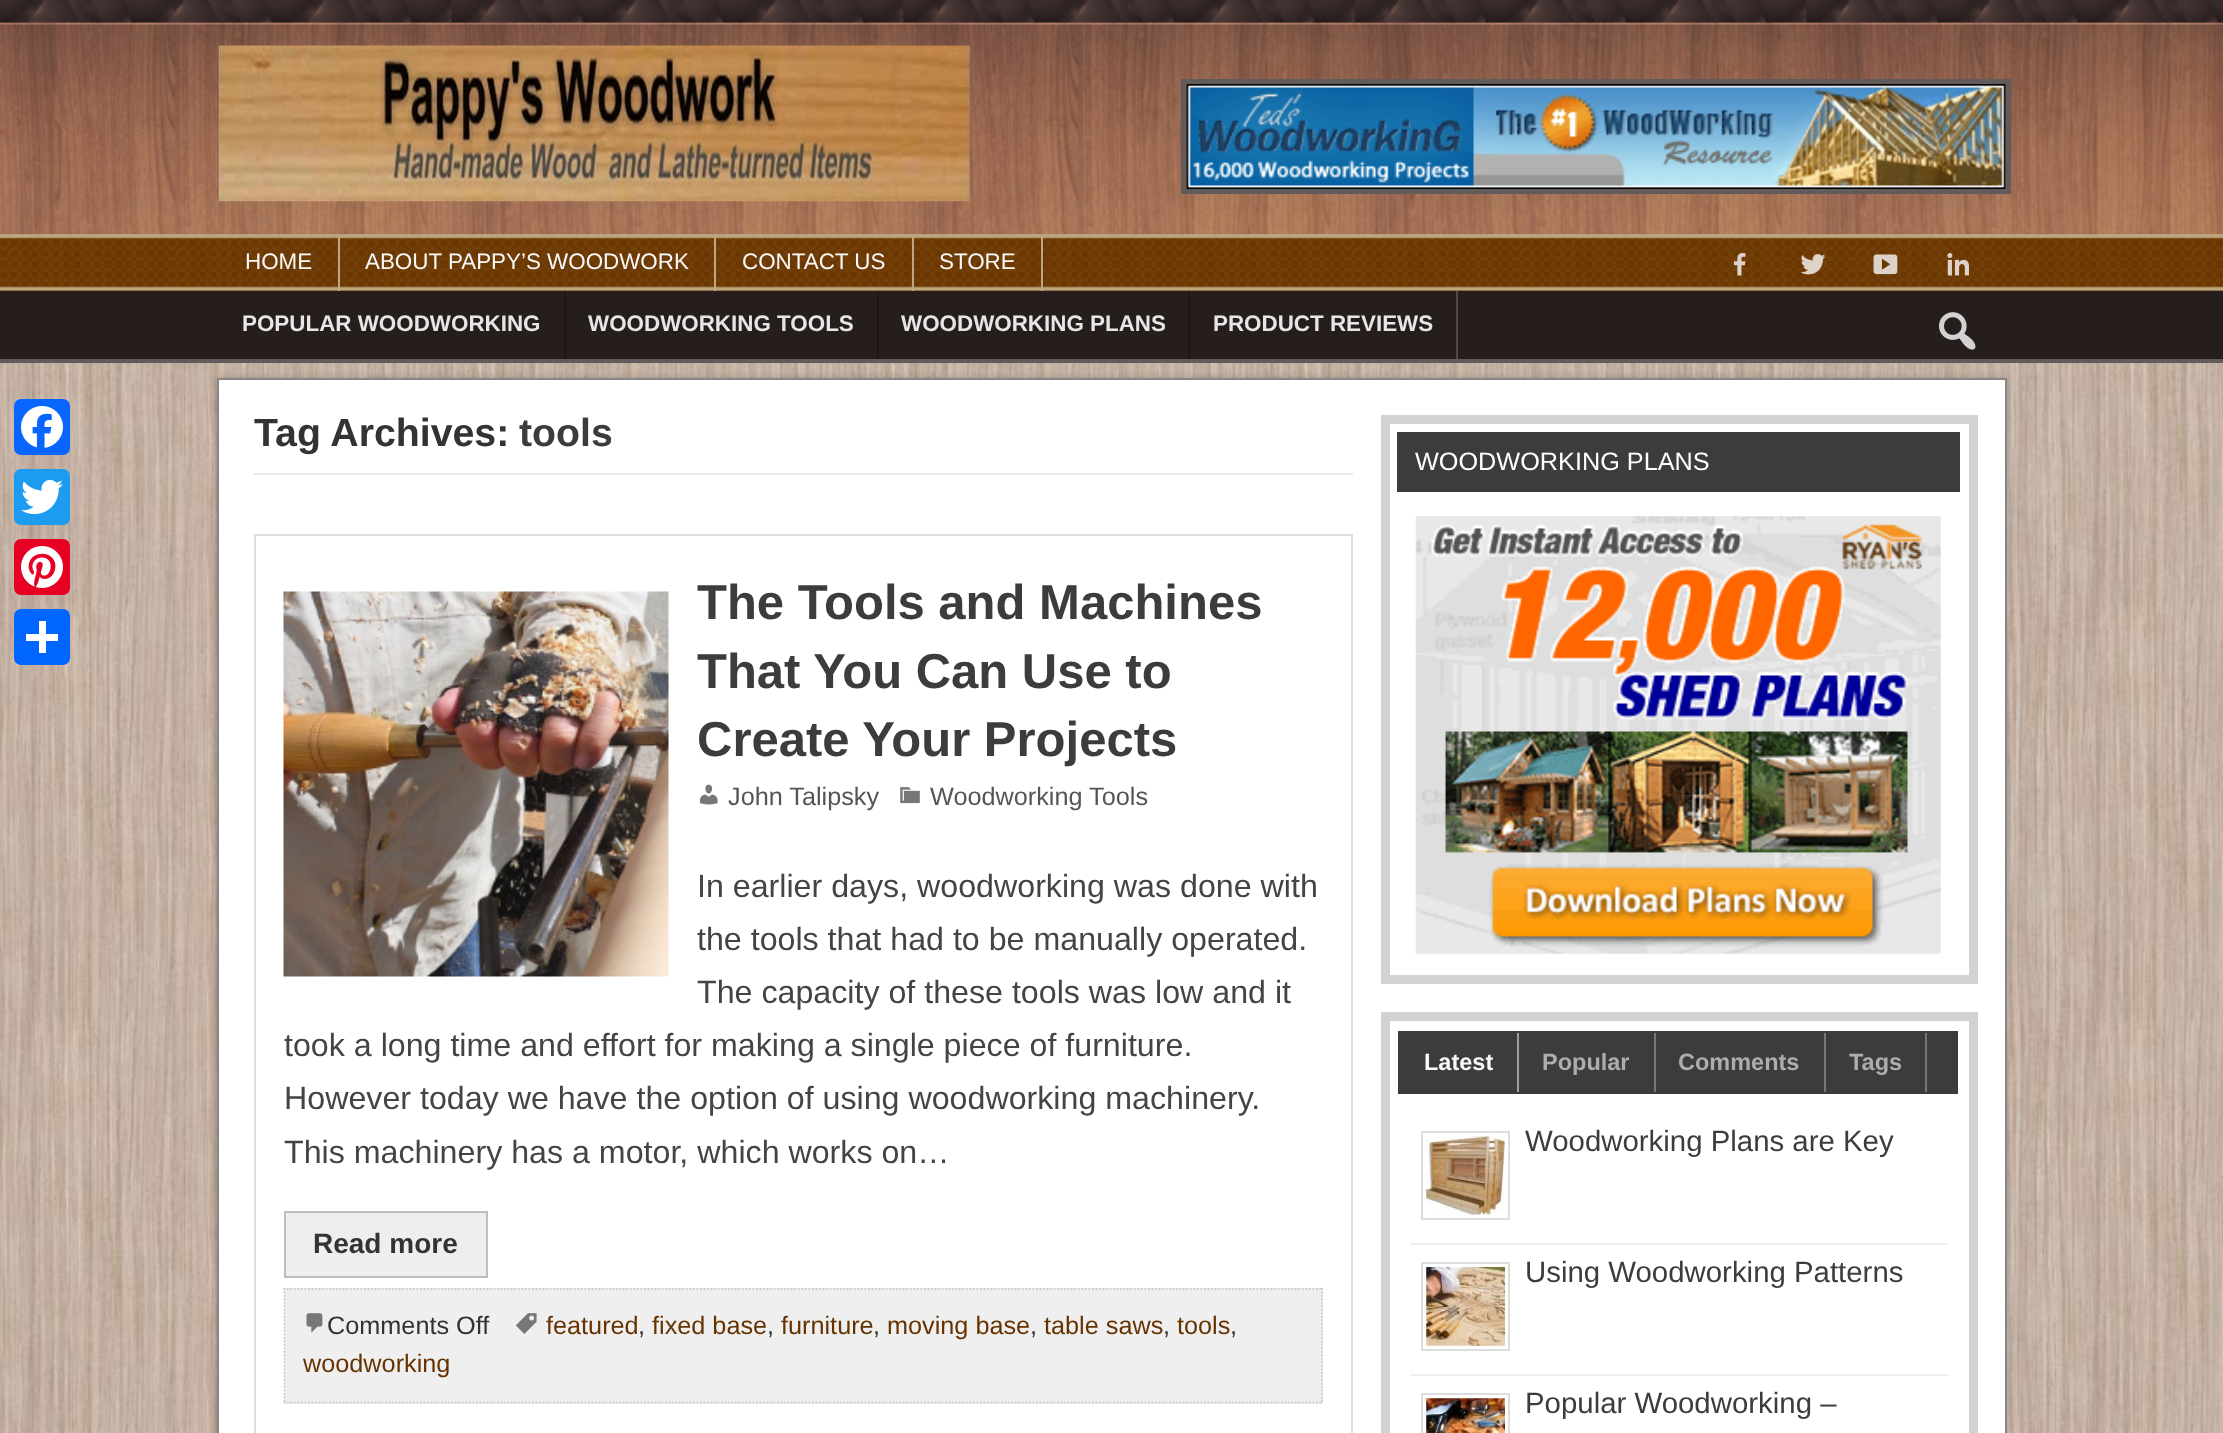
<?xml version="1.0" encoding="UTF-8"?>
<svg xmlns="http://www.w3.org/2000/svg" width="2223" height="1433">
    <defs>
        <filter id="blur1" x="-50%" y="-200%" width="200%" height="500%"><feGaussianBlur stdDeviation="4.5"/></filter>
    </defs>
    <rect width="100%" height="100%" fill="#FFFFFF"/>
    <image x="0" y="234" width="2223" height="1199" href="img_01.png"/>
    <rect x="14" y="399" width="56" height="56" rx="7" fill="#0866FF"/>
    <image x="21" y="406" width="42" height="42" href="img_02.png"/>
    <rect x="14" y="469" width="56" height="56" rx="7" fill="#1D9BF0"/>
    <image x="21" y="479" width="42" height="36" href="img_03.png"/>
    <rect x="14" y="539" width="56" height="56" rx="7" fill="#E60023"/>
    <image x="21" y="546" width="42" height="42" href="img_04.png"/>
    <rect x="14" y="609" width="56" height="56" rx="7" fill="#0166FF"/>
    <rect x="39" y="621" width="7" height="32" fill="#FFFFFF"/>
    <rect x="26" y="634" width="32" height="7" fill="#FFFFFF"/>
    <image x="0" y="0" width="2223" height="235" href="img_05.png"/>
    <image x="218" y="45" width="752" height="157" href="img_06.png"/>
    <image x="1186" y="84" width="820" height="105" href="img_07.png"/>
    <rect x="1183.5" y="81.5" width="825" height="110" fill="none" stroke="#625B5B" stroke-width="5"/>
    <rect x="0" y="290" width="2223" height="1" fill="#6D3802"/>
    <image x="0" y="234" width="2223" height="57" href="img_08.png"/>
    <rect x="338" y="235" width="2" height="56" fill="#BDA780"/>
    <text x="245" y="269" font-family="Liberation Sans" font-size="22.4" fill="#F9F9F9">HOME</text>
    <rect x="714" y="235" width="2" height="56" fill="#BDA780"/>
    <text x="365" y="269" font-family="Liberation Sans" font-size="22.4" fill="#F9F9F9">ABOUT PAPPY’S WOODWORK</text>
    <rect x="912" y="235" width="2" height="56" fill="#BDA780"/>
    <text x="742" y="269" font-family="Liberation Sans" font-size="22.4" fill="#F9F9F9">CONTACT US</text>
    <rect x="1041" y="235" width="2" height="56" fill="#BDA780"/>
    <text x="939" y="269" font-family="Liberation Sans" font-size="22.4" fill="#F9F9F9">STORE</text>
    <image x="1733" y="253" width="13" height="23" href="img_09.png"/>
    <image x="1800" y="254" width="26" height="21" href="img_10.png"/>
    <image x="1873" y="254" width="25" height="21" href="img_11.png"/>
    <image x="1947" y="253" width="22" height="23" href="img_12.png"/>
    <rect x="0" y="291" width="2223" height="68" fill="#261D1D"/>
    <rect x="0" y="359" width="2223" height="4" fill="#625B5B"/>
    <text x="242" y="331" font-family="Liberation Sans" font-size="22.4" font-weight="700" fill="#E6E6E6">POPULAR WOODWORKING</text>
    <rect x="564" y="291" width="2" height="68" fill="#1E1717"/>
    <text x="588" y="331" font-family="Liberation Sans" font-size="22.4" font-weight="700" fill="#E6E6E6">WOODWORKING TOOLS</text>
    <rect x="877" y="291" width="2" height="68" fill="#1E1717"/>
    <text x="901" y="331" font-family="Liberation Sans" font-size="22.4" font-weight="700" fill="#E6E6E6">WOODWORKING PLANS</text>
    <rect x="1456" y="291" width="2" height="68" fill="#504A4A"/>
    <rect x="1188" y="291" width="2" height="68" fill="#1E1717"/>
    <text x="1213" y="331" font-family="Liberation Sans" font-size="22.4" font-weight="700" fill="#E6E6E6">PRODUCT REVIEWS</text>
    <image x="1939" y="312" width="37" height="38" href="img_13.png"/>
    <rect x="217" y="378" width="1790" height="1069" fill="#000000" fill-opacity="0.2" filter="url(#blur1)"/>
    <rect x="218" y="379" width="1788" height="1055" fill="#FFFFFF" stroke="#8A8484" stroke-width="2"/>
    <rect x="254" y="473" width="1099" height="2" fill="#EAEAEA"/>
    <text x="254" y="446" font-family="Liberation Sans" font-size="39.25" font-weight="700" fill="#333333">Tag Archives:</text>
    <text x="519" y="446" font-family="Liberation Sans" font-size="39.25" font-weight="700" fill="#3C3C3C">tools</text>
    <rect x="255" y="535" width="1097" height="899" fill="none" stroke="#DDDDDD" stroke-width="2"/>
    <image x="283" y="591" width="386" height="386" href="img_14.png"/>
    <text font-family="Liberation Sans" font-size="49" font-weight="700" fill="#3C3C3C">
        <tspan x="697" y="619">The Tools and Machines</tspan>
        <tspan x="697" y="688">That You Can Use to</tspan>
        <tspan x="697" y="756">Create Your Projects</tspan>
    </text>
    <image x="699" y="784" width="19" height="21" href="img_15.png"/>
    <text x="728" y="805" font-family="Liberation Sans" font-size="25.25" fill="#555555">John Talipsky</text>
    <image x="900" y="787" width="20" height="17" href="img_16.png"/>
    <text x="930" y="805" font-family="Liberation Sans" font-size="25.25" fill="#555555">Woodworking Tools</text>
    <text font-family="Liberation Sans" font-size="32.2" fill="#444444">
        <tspan x="697" y="897">In earlier days, woodworking was done with</tspan>
        <tspan x="697" y="950">the tools that had to be manually operated.</tspan>
        <tspan x="697" y="1003">The capacity of these tools was low and it</tspan>
    </text>
    <text font-family="Liberation Sans" font-size="32.2" fill="#444444">
        <tspan x="284" y="1056">took a long time and effort for making a single piece of furniture.</tspan>
        <tspan x="284" y="1109">However today we have the option of using woodworking machinery.</tspan>
        <tspan x="284" y="1163">This machinery has a motor, which works on…</tspan>
    </text>
    <rect x="285" y="1212" width="202" height="65" fill="#EEEEEE" stroke="#BEBEBE" stroke-width="2"/>
    <text x="313" y="1253" font-family="Liberation Sans" font-size="28" font-weight="700" fill="#333333">Read more</text>
    <rect x="284" y="1288" width="1039" height="116" fill="#EFEFEF"/>
    <path d="M 283.5 1289 H 1323" fill="none" stroke="#CCCCCC" stroke-width="1.8" stroke-dasharray="1.75 1.75"/>
    <path d="M 1322 1288 V 1403.5" fill="none" stroke="#CCCCCC" stroke-width="1.8" stroke-dasharray="1.75 1.75"/>
    <path d="M 283.5 1402.5 H 1323" fill="none" stroke="#CCCCCC" stroke-width="1.8" stroke-dasharray="1.75 1.75"/>
    <path d="M 284.5 1288 V 1403.5" fill="none" stroke="#CCCCCC" stroke-width="1.8" stroke-dasharray="1.75 1.75"/>
    <image x="515" y="1313" width="22" height="21" href="img_17.png"/>
    <text x="546" y="1334" font-family="Liberation Sans" font-size="25.25" fill="#663300">featured</text>
    <text x="638" y="1334" font-family="Liberation Sans" font-size="25.25" fill="#333333">,</text>
    <text x="652" y="1334" font-family="Liberation Sans" font-size="25.25" fill="#663300">fixed base</text>
    <text x="767" y="1334" font-family="Liberation Sans" font-size="25.25" fill="#333333">,</text>
    <text x="781" y="1334" font-family="Liberation Sans" font-size="25.25" fill="#663300">furniture</text>
    <text x="873" y="1334" font-family="Liberation Sans" font-size="25.25" fill="#333333">,</text>
    <text x="887" y="1334" font-family="Liberation Sans" font-size="25.25" fill="#663300">moving base</text>
    <text x="1030" y="1334" font-family="Liberation Sans" font-size="25.25" fill="#333333">,</text>
    <text x="1044" y="1334" font-family="Liberation Sans" font-size="25.25" fill="#663300">table saws</text>
    <text x="1163" y="1334" font-family="Liberation Sans" font-size="25.25" fill="#333333">,</text>
    <text x="1177" y="1334" font-family="Liberation Sans" font-size="25.25" fill="#663300">tools</text>
    <text x="1230" y="1334" font-family="Liberation Sans" font-size="25.25" fill="#333333">,</text>
    <text x="303" y="1372" font-family="Liberation Sans" font-size="25.25" fill="#663300">woodworking</text>
    <image x="306" y="1313" width="17" height="20" href="img_18.png"/>
    <text x="327" y="1334" font-family="Liberation Sans" font-size="25.25" fill="#333333">Comments Off</text>
    <rect x="1385.5" y="419.5" width="588" height="560" fill="none" stroke="#D3D2D2" stroke-width="9"/>
    <rect x="1397" y="432" width="563" height="60" fill="#3C3C3C"/>
    <text x="1415" y="470" font-family="Liberation Sans" font-size="25.25" fill="#FFFFFF">WOODWORKING PLANS</text>
    <image x="1415" y="516" width="526" height="438" href="img_19.png"/>
    <rect x="1385.5" y="1016.5" width="588" height="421" fill="none" stroke="#D3D2D2" stroke-width="9"/>
    <rect x="1398" y="1031" width="560" height="63" fill="#3C3C3C"/>
    <rect x="1517" y="1033" width="2" height="59" fill="#9E9E9E"/>
    <text x="1424" y="1070" font-family="Liberation Sans" font-size="23.5" font-weight="700" fill="#F9F9F9">Latest</text>
    <rect x="1654" y="1033" width="2" height="59" fill="#777777"/>
    <text x="1542" y="1070" font-family="Liberation Sans" font-size="23.5" font-weight="700" fill="#ADADAD">Popular</text>
    <rect x="1824" y="1033" width="2" height="59" fill="#777777"/>
    <text x="1678" y="1070" font-family="Liberation Sans" font-size="23.5" font-weight="700" fill="#ADADAD">Comments</text>
    <rect x="1925" y="1033" width="2" height="59" fill="#777777"/>
    <text x="1849" y="1070" font-family="Liberation Sans" font-size="23.5" font-weight="700" fill="#ADADAD">Tags</text>
    <rect x="1411" y="1243" width="537" height="2" fill="#EDEDED"/>
    <rect x="1422" y="1132" width="87" height="87" fill="none" stroke="#DDDDDD" stroke-width="2"/>
    <image x="1426" y="1135" width="79" height="80" href="img_20.png"/>
    <text x="1525" y="1151" font-family="Liberation Sans" font-size="29.4" fill="#3C3C3C">Woodworking Plans are Key</text>
    <rect x="1411" y="1374" width="537" height="2" fill="#EDEDED"/>
    <rect x="1422" y="1263" width="87" height="87" fill="none" stroke="#DDDDDD" stroke-width="2"/>
    <image x="1426" y="1267" width="79" height="79" href="img_21.png"/>
    <text x="1525" y="1282" font-family="Liberation Sans" font-size="29.4" fill="#3C3C3C">Using Woodworking Patterns</text>
    <rect x="1422" y="1394" width="87" height="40" fill="none" stroke="#DDDDDD" stroke-width="2"/>
    <image x="1426" y="1398" width="79" height="35" href="img_22.png"/>
    <text x="1525" y="1413" font-family="Liberation Sans" font-size="29.4" fill="#3C3C3C">Popular Woodworking –</text>
</svg>
